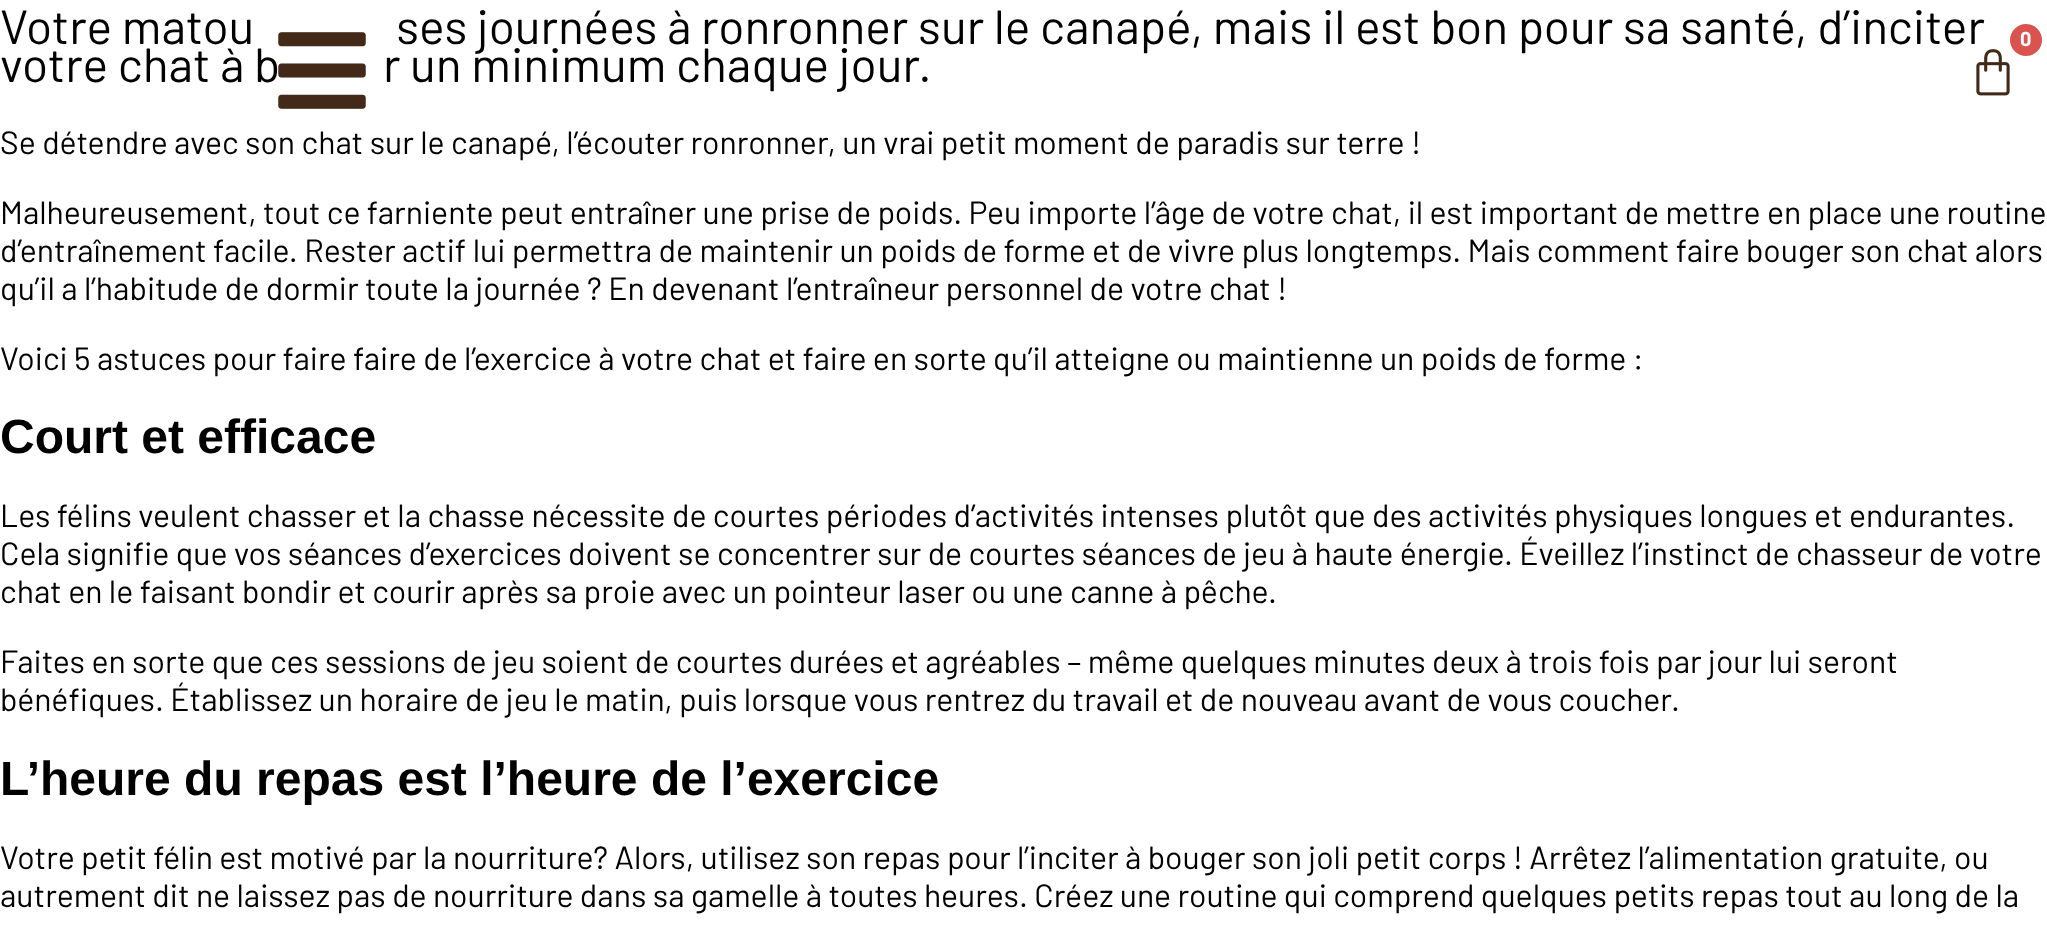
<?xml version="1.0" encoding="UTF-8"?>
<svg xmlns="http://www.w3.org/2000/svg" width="2047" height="933">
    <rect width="100%" height="100%" fill="#FFFFFF"/>
    <text x="0" y="44" font-family="Barlow" font-size="48" fill="#000000">Votre matou</text>
    <text x="396" y="44" font-family="Barlow" font-size="48" fill="#000000">ses journées à ronronner sur le canapé, mais il est bon pour sa santé, d’inciter</text>
    <text x="0" y="82" font-family="Barlow" font-size="48" fill="#000000">votre chat à b</text>
    <text x="383" y="82" font-family="Barlow" font-size="48" fill="#000000">r un minimum chaque jour.</text>
    <text x="0" y="154" font-family="Barlow" font-size="32" fill="#000000">Se détendre avec son chat sur le canapé, l’écouter ronronner, un vrai petit moment de paradis sur terre !</text>
    <text font-family="Barlow" font-size="32" fill="#000000">
        <tspan x="0" y="224">Malheureusement, tout ce farniente peut entraîner une prise de poids. Peu importe l’âge de votre chat, il est important de mettre en place une routine</tspan>
        <tspan x="0" y="262">d’entraînement facile. Rester actif lui permettra de maintenir un poids de forme et de vivre plus longtemps. Mais comment faire bouger son chat alors</tspan>
        <tspan x="0" y="300">qu’il a l’habitude de dormir toute la journée ? En devenant l’entraîneur personnel de votre chat !</tspan>
    </text>
    <text x="0" y="370" font-family="Barlow" font-size="32" fill="#000000">Voici 5 astuces pour faire faire de l’exercice à votre chat et faire en sorte qu’il atteigne ou maintienne un poids de forme :</text>
    <text x="0" y="453" font-family="Liberation Sans" font-size="48" font-weight="700" fill="#000000">Court et efficace</text>
    <text font-family="Barlow" font-size="32" fill="#000000">
        <tspan x="0" y="527">Les félins veulent chasser et la chasse nécessite de courtes périodes d’activités intenses plutôt que des activités physiques longues et endurantes.</tspan>
        <tspan x="0" y="565">Cela signifie que vos séances d’exercices doivent se concentrer sur de courtes séances de jeu à haute énergie. Éveillez l’instinct de chasseur de votre</tspan>
        <tspan x="0" y="603">chat en le faisant bondir et courir après sa proie avec un pointeur laser ou une canne à pêche.</tspan>
    </text>
    <text font-family="Barlow" font-size="32" fill="#000000">
        <tspan x="0" y="673">Faites en sorte que ces sessions de jeu soient de courtes durées et agréables – même quelques minutes deux à trois fois par jour lui seront</tspan>
        <tspan x="0" y="711">bénéfiques. Établissez un horaire de jeu le matin, puis lorsque vous rentrez du travail et de nouveau avant de vous coucher.</tspan>
    </text>
    <text x="0" y="795" font-family="Liberation Sans" font-size="48" font-weight="700" fill="#000000">L’heure du repas est l’heure de l’exercice</text>
    <text font-family="Barlow" font-size="32" fill="#000000">
        <tspan x="0" y="869">Votre petit félin est motivé par la nourriture? Alors, utilisez son repas pour l’inciter à bouger son joli petit corps ! Arrêtez l’alimentation gratuite, ou</tspan>
        <tspan x="0" y="907">autrement dit ne laissez pas de nourriture dans sa gamelle à toutes heures. Créez une routine qui comprend quelques petits repas tout au long de la</tspan>
    </text>
    <image x="278" y="32" width="88" height="77" href="img_01.png"/>
    <circle cx="2026" cy="40" r="16" fill="#D9534F"/>
    <text x="2020" y="46" font-family="Barlow" font-size="20" font-weight="700" fill="#FFFFFF">0</text>
    <image x="1976" y="49" width="34" height="47" href="img_02.png"/>
</svg>
